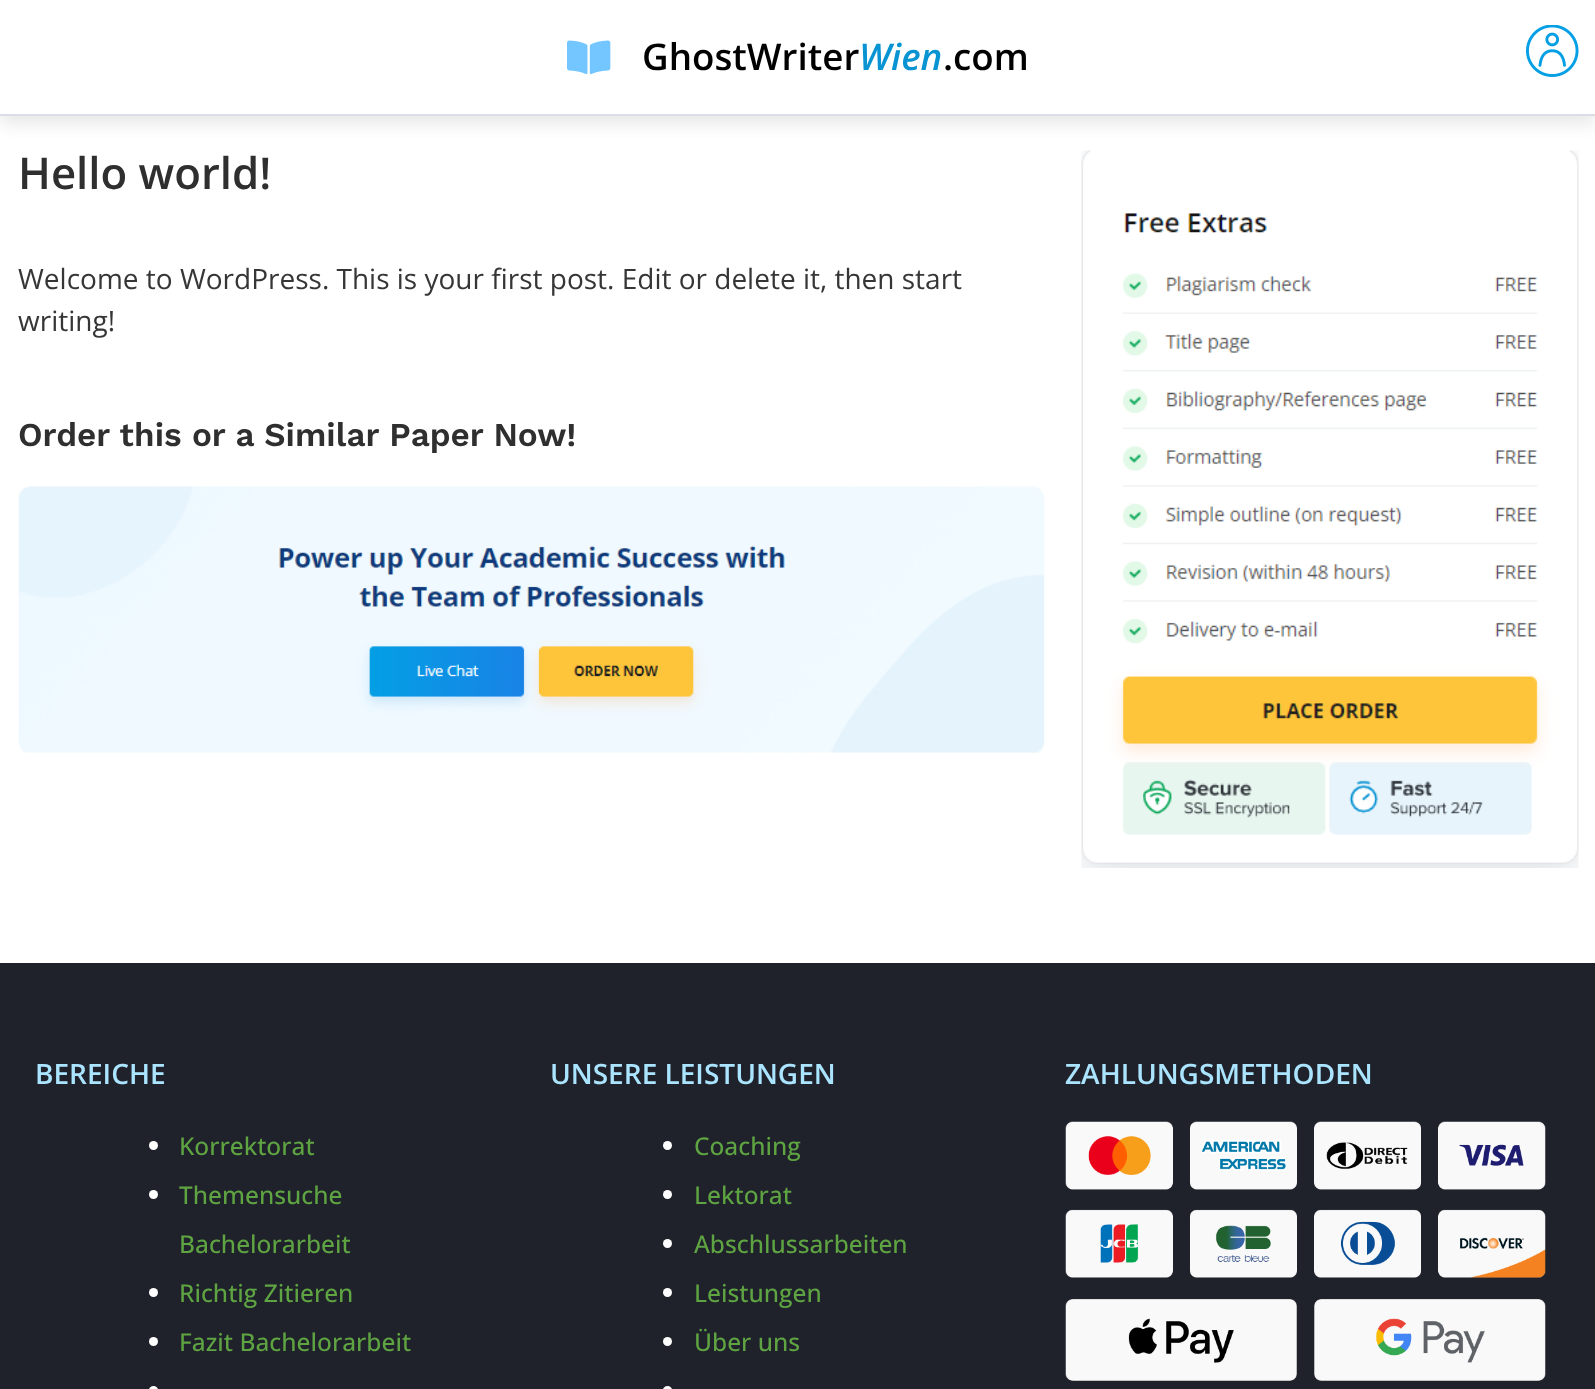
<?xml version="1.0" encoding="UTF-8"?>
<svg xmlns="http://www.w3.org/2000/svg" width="1595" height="1389">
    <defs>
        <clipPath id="clip1"><rect x="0" y="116" width="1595" height="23"/></clipPath>
        <filter id="blur1" x="-50%" y="-200%" width="200%" height="500%"><feGaussianBlur stdDeviation="9"/></filter>
    </defs>
    <rect width="100%" height="100%" fill="#FFFFFF"/>
    <image x="1081" y="150" width="498" height="718" href="img_04.png"/>
    <g clip-path="url(#clip1)">
        <rect x="0" y="7" width="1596" height="116" fill="#CBCBCB" fill-opacity="0.5" filter="url(#blur1)"/>
    </g>
    <rect x="0" y="114" width="1595" height="2" fill="#DADDE5"/>
    <image x="567" y="40" width="44" height="35" href="img_01.png"/>
    <text x="642" y="70" font-family="Open Sans" font-size="36.75" font-weight="600" fill="#000000">GhostWriter</text>
    <text x="859" y="70" font-family="Open Sans" font-size="36.75" font-weight="600" font-style="italic" fill="#0893D2">Wien</text>
    <text x="943" y="70" font-family="Open Sans" font-size="36.75" font-weight="600" fill="#000000">.com</text>
    <image x="1526" y="25" width="53" height="52" href="img_02.png"/>
    <text x="18" y="189" font-family="Open Sans" font-size="43.75" font-weight="600" fill="#2F2F2F">Hello world!</text>
    <text font-family="Open Sans" font-size="28" fill="#363636">
        <tspan x="18" y="289">Welcome to WordPress. This is your first post. Edit or delete it, then start</tspan>
        <tspan x="18" y="331">writing!</tspan>
    </text>
    <text x="18" y="446" font-family="Work Sans" font-size="33.25" font-weight="600" fill="#2F2F2F">Order this or a Similar Paper Now!</text>
    <image x="18" y="486" width="1027" height="267" href="img_03.png"/>
    <rect x="0" y="963" width="1595" height="426" fill="#1F222A"/>
    <text x="35" y="1084" font-family="Open Sans" font-size="28" font-weight="600" fill="#ABE4FE">BEREICHE</text>
    <circle cx="153.5" cy="1145.5" r="4.5" fill="#FFFFFF"/>
    <text x="179" y="1155" font-family="Open Sans" font-size="24.5" font-weight="500" fill="#5FA442">Korrektorat</text>
    <circle cx="153.5" cy="1194.5" r="4.5" fill="#FFFFFF"/>
    <text x="179" y="1204" font-family="Open Sans" font-size="24.5" font-weight="500" fill="#5FA442">Themensuche</text>
    <text x="179" y="1253" font-family="Open Sans" font-size="24.5" font-weight="500" fill="#5FA442">Bachelorarbeit</text>
    <circle cx="153.5" cy="1292.5" r="4.5" fill="#FFFFFF"/>
    <text x="179" y="1302" font-family="Open Sans" font-size="24.5" font-weight="500" fill="#5FA442">Richtig Zitieren</text>
    <circle cx="153.5" cy="1341.5" r="4.5" fill="#FFFFFF"/>
    <text x="179" y="1351" font-family="Open Sans" font-size="24.5" font-weight="500" fill="#5FA442">Fazit Bachelorarbeit</text>
    <rect x="149" y="1386" width="9" height="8" rx="4.5" fill="#FFFFFF"/>
    <text x="550" y="1084" font-family="Open Sans" font-size="28" font-weight="600" fill="#ABE4FE">UNSERE LEISTUNGEN</text>
    <circle cx="667.5" cy="1145.5" r="4.5" fill="#FFFFFF"/>
    <text x="694" y="1155" font-family="Open Sans" font-size="24.5" font-weight="500" fill="#5FA442">Coaching</text>
    <circle cx="667.5" cy="1194.5" r="4.5" fill="#FFFFFF"/>
    <text x="694" y="1204" font-family="Open Sans" font-size="24.5" font-weight="500" fill="#5FA442">Lektorat</text>
    <circle cx="667.5" cy="1243.5" r="4.5" fill="#FFFFFF"/>
    <text x="694" y="1253" font-family="Open Sans" font-size="24.5" font-weight="500" fill="#5FA442">Abschlussarbeiten</text>
    <circle cx="667.5" cy="1292.5" r="4.5" fill="#FFFFFF"/>
    <text x="694" y="1302" font-family="Open Sans" font-size="24.5" font-weight="500" fill="#5FA442">Leistungen</text>
    <circle cx="667.5" cy="1341.5" r="4.5" fill="#FFFFFF"/>
    <text x="694" y="1351" font-family="Open Sans" font-size="24.5" font-weight="500" fill="#5FA442">Über uns</text>
    <rect x="663" y="1386" width="9" height="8" rx="4.5" fill="#FFFFFF"/>
    <text x="1065" y="1084" font-family="Open Sans" font-size="28" font-weight="600" fill="#ABE4FE">ZAHLUNGSMETHODEN</text>
    <image x="1065" y="1121" width="481" height="260" href="img_05.png"/>
</svg>
